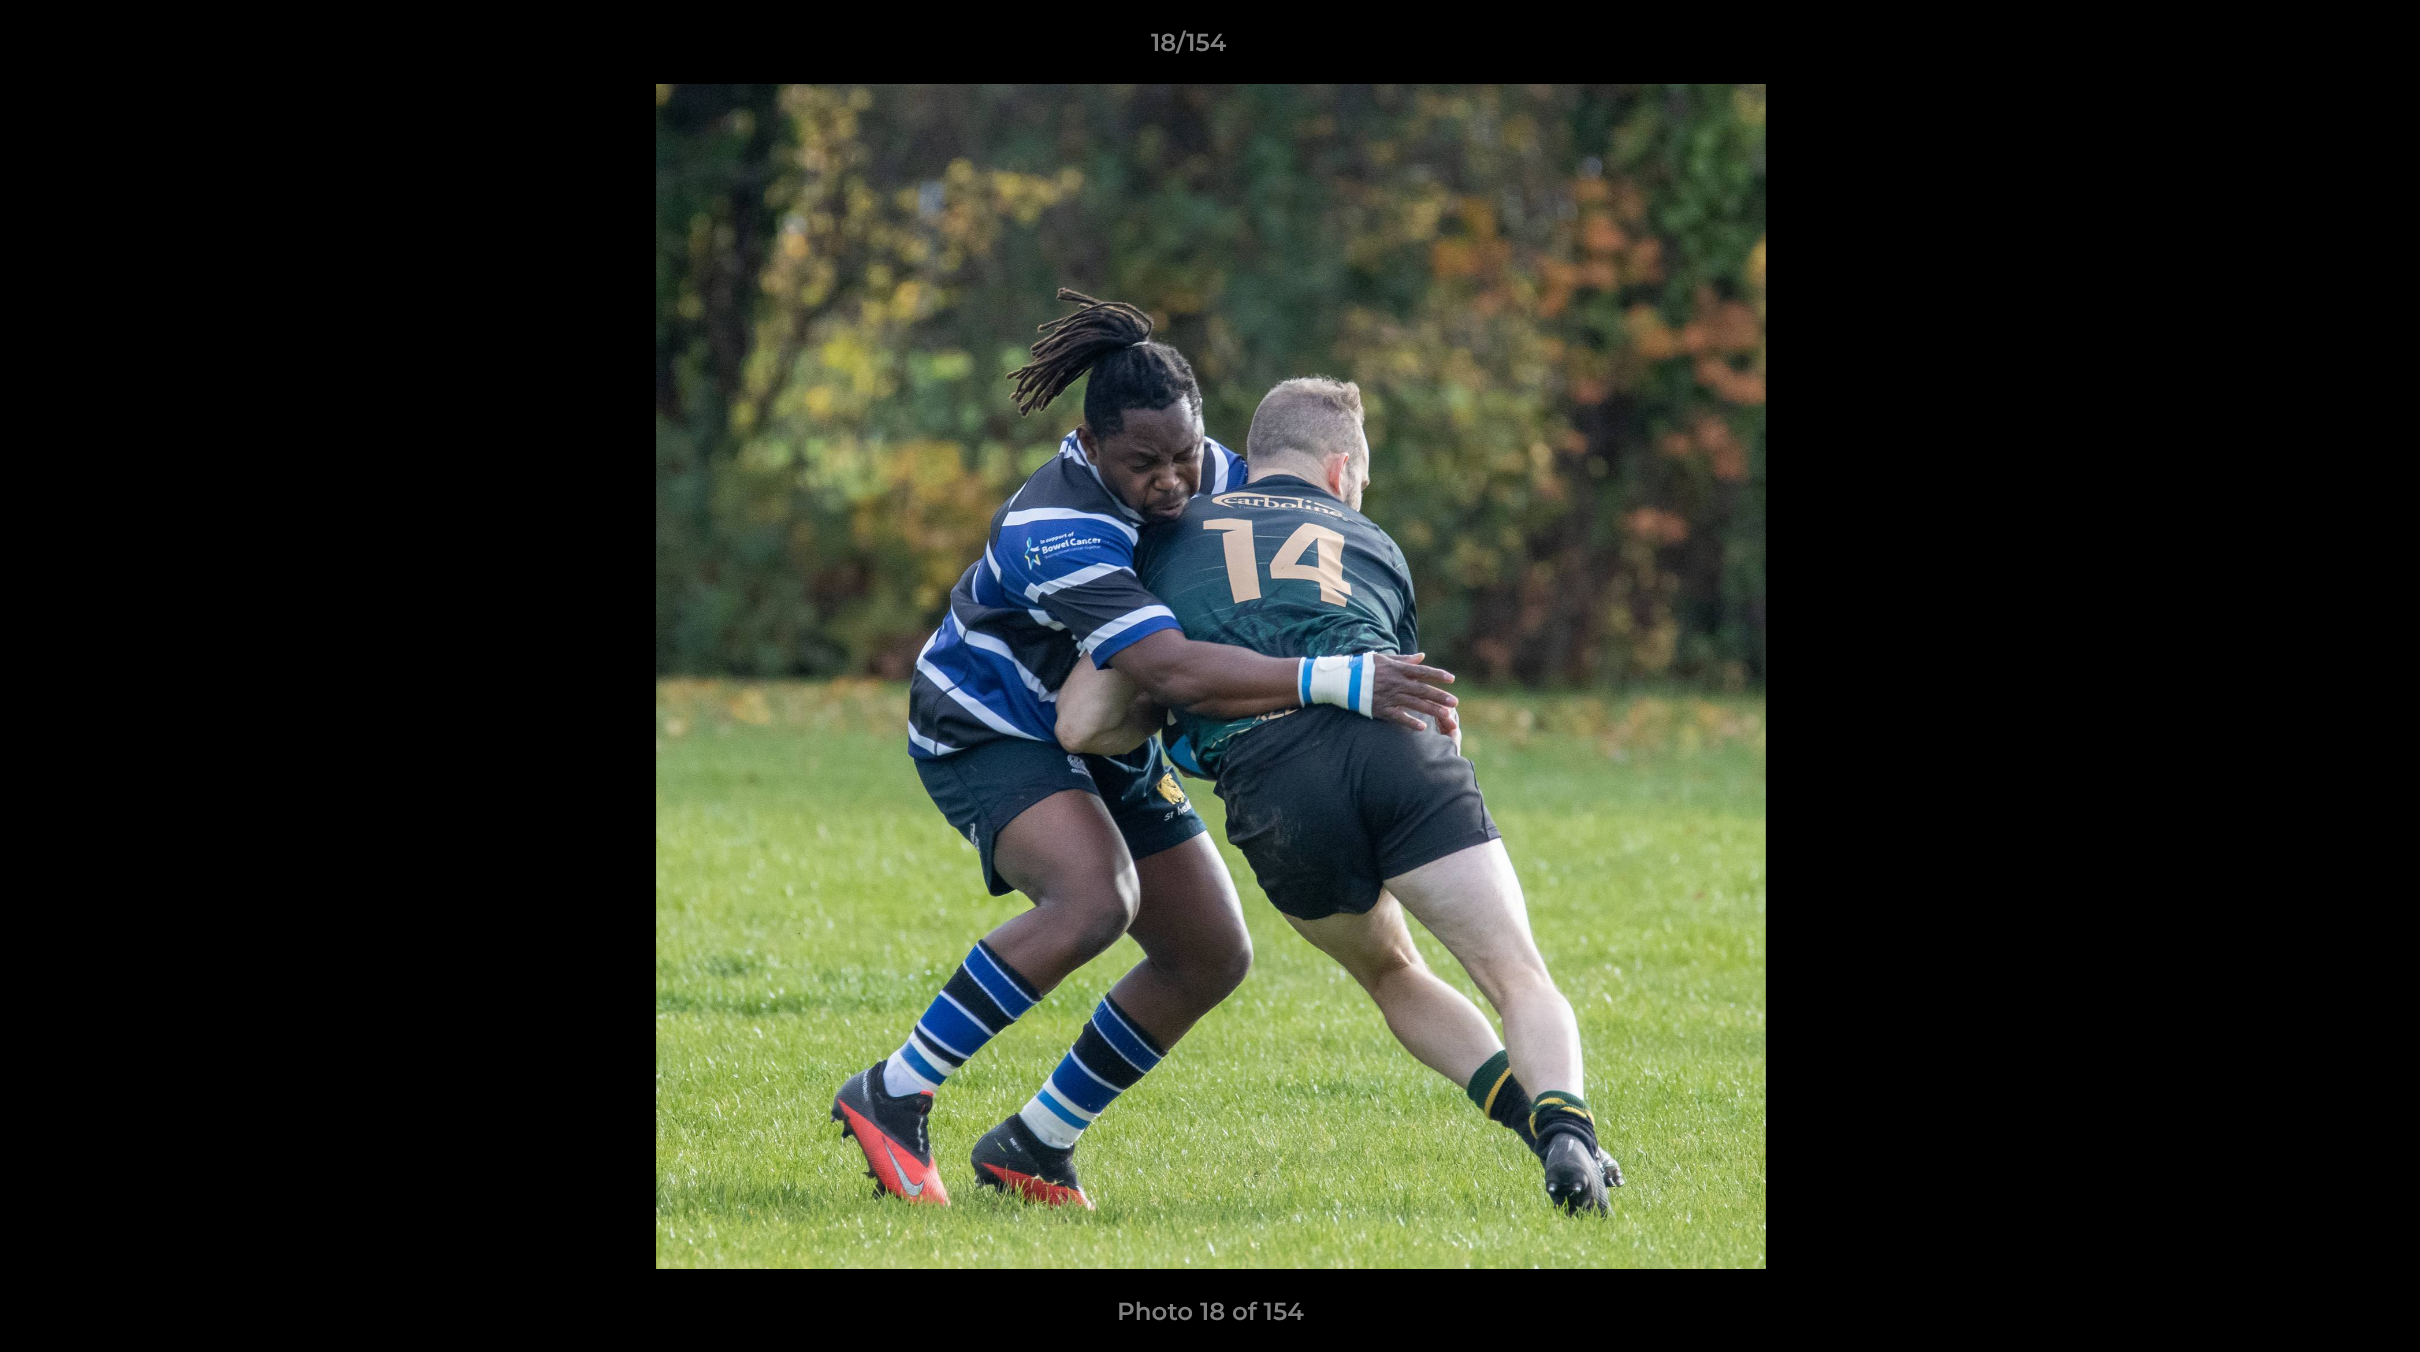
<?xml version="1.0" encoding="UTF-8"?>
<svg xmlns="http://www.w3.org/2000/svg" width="2420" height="1352">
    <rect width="100%" height="100%" fill="#000000"/>
    <text x="1151" y="51" font-family="Montserrat" font-size="24.5" font-weight="600" fill="#808080">18/154</text>
    <image x="656" y="84" width="1110" height="1185" href="img_01.png"/>
    <text x="1117" y="1320" font-family="Montserrat" font-size="24.5" font-weight="600" fill="#808080">Photo 18 of 154</text>
</svg>
